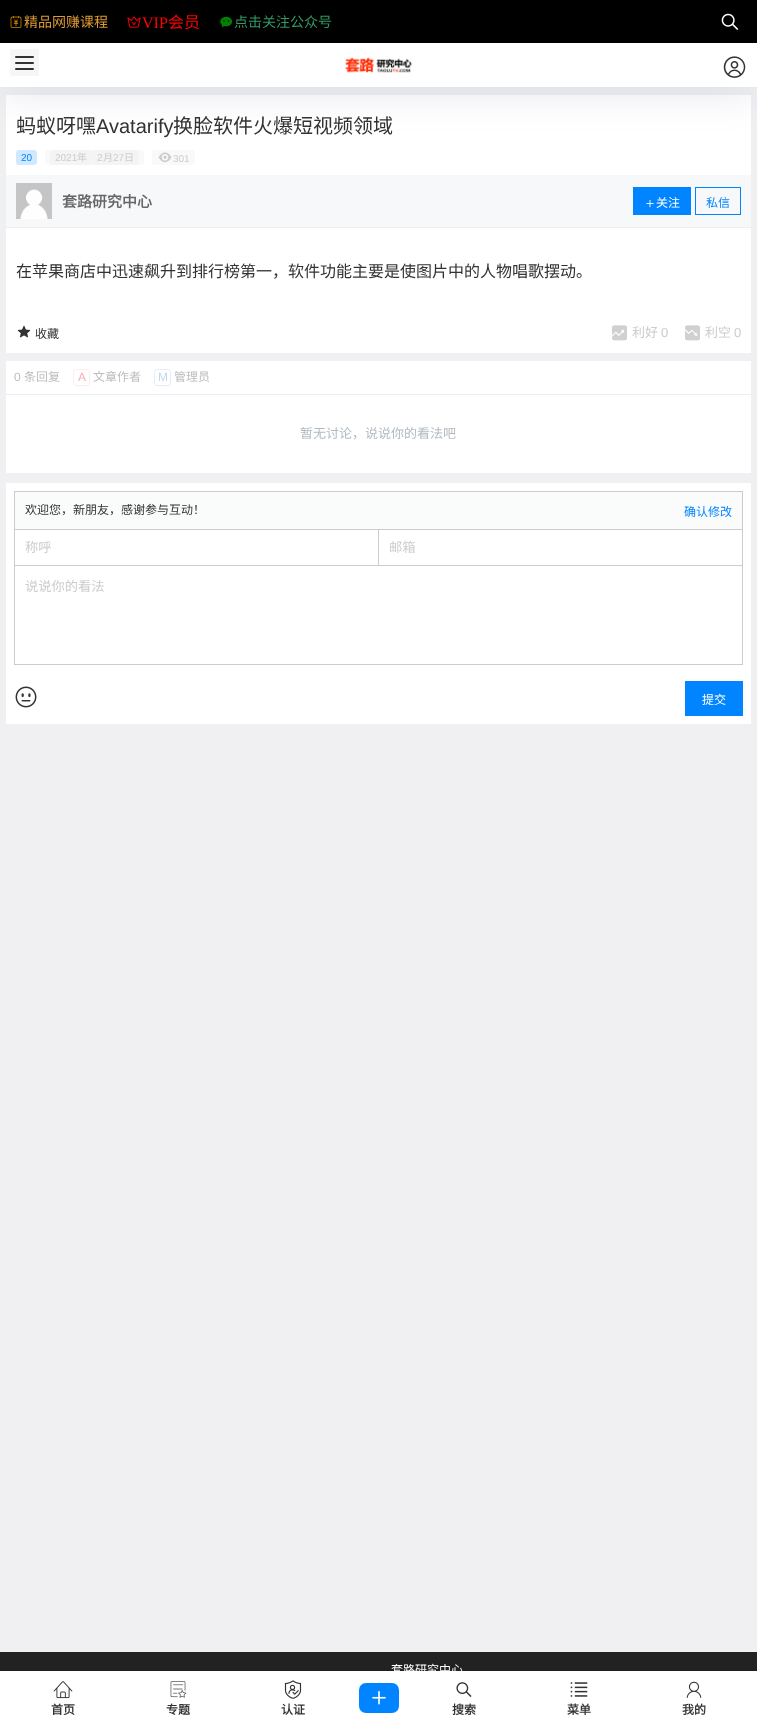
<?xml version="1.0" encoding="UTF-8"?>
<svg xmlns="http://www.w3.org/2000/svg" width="757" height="1726">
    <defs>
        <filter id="blur1" x="-50%" y="-200%" width="200%" height="500%"><feGaussianBlur stdDeviation="20"/></filter>
        <filter id="blur2" x="-50%" y="-200%" width="200%" height="500%"><feGaussianBlur stdDeviation="1.5"/></filter>
    </defs>
    <rect width="100%" height="100%" fill="#F0F0F2"/>
    <rect x="6" y="95" width="745" height="258" fill="#FFFFFF"/>
    <rect x="16" y="150" width="21" height="15" rx="3" fill="#D1E9FF"/>
    <rect x="45" y="150" width="99" height="15" rx="3" fill="#F9F9F9"/>
    <rect x="50" y="150" width="42" height="15" rx="3" fill="#F4F4F4"/>
    <rect x="92" y="150" width="47" height="15" rx="3" fill="#F4F4F4"/>
    <rect x="152" y="150" width="43" height="15" rx="3" fill="#F9F9F9"/>
    <image x="158" y="152" width="14" height="11" href="img_07.png"/>
    <rect x="0" y="5" width="757" height="87" fill="#113A5D" fill-opacity="0.1" filter="url(#blur1)"/>
    <rect x="0" y="0" width="757" height="43" fill="#000000"/>
    <image x="10" y="16" width="12" height="12" href="img_01.png"/>
    <text x="24" y="27" font-family="Noto Sans CJK SC" font-size="14" fill="#DD9933">精品网赚课程</text>
    <image x="127" y="16" width="14" height="12" href="img_02.png"/>
    <text x="142" y="28" font-family="Liberation Serif" font-size="16" fill="#FF0000">VIP</text>
    <text x="168" y="28" font-family="Noto Sans CJK SC" font-size="16" fill="#FF0000">会员</text>
    <image x="220" y="16" width="12" height="12" href="img_03.png"/>
    <text x="234" y="27" font-family="Noto Sans CJK SC" font-size="14" fill="#339966">点击关注公众号</text>
    <image x="721" y="13" width="18" height="17" href="img_04.png"/>
    <rect x="0" y="43" width="757" height="44" fill="#FFFFFF"/>
    <rect x="10" y="49" width="29" height="27" rx="2" fill="#F6F6F6"/>
    <rect x="15" y="56" width="19" height="2" rx="1" fill="#333333"/>
    <rect x="15" y="62" width="19" height="2" rx="1" fill="#333333"/>
    <rect x="15" y="68" width="19" height="2" rx="1" fill="#333333"/>
    <image x="345" y="57" width="68" height="16" href="img_05.png"/>
    <image x="723" y="56" width="23" height="22" href="img_06.png"/>
    <text x="16" y="133" font-family="Noto Sans CJK SC" font-size="20" fill="#323232">蚂蚁呀嘿</text>
    <text x="96" y="133" font-family="Liberation Sans" font-size="20" fill="#323232">Avatarify</text>
    <text x="173" y="133" font-family="Noto Sans CJK SC" font-size="20" fill="#323232">换脸软件火爆短视频领域</text>
    <text x="21" y="161" font-family="Liberation Sans" font-size="10" fill="#0084FF">20</text>
    <text x="55" y="161" font-family="Liberation Sans" font-size="10" fill="#CCCCCC">2021</text>
    <text x="77" y="161" font-family="Noto Sans CJK SC" font-size="10" fill="#CCCCCC">年</text>
    <text x="97" y="161" font-family="Liberation Sans" font-size="10" fill="#CCCCCC">2</text>
    <text x="103" y="161" font-family="Noto Sans CJK SC" font-size="10" fill="#CCCCCC">月</text>
    <text x="113" y="161" font-family="Liberation Sans" font-size="10" fill="#CCCCCC">27</text>
    <text x="124" y="161" font-family="Noto Sans CJK SC" font-size="10" fill="#CCCCCC">日</text>
    <text x="173" y="162" font-family="Liberation Sans" font-size="10" fill="#CCCCCC">301</text>
    <rect x="6" y="175" width="745" height="52" fill="#F7F8FA"/>
    <rect x="6" y="227" width="745" height="1" fill="#EEEEEE"/>
    <image x="16" y="183" width="36" height="36" href="img_08.png"/>
    <text x="62" y="207" font-family="Noto Sans CJK SC" font-size="15" font-weight="700" fill="#666666">套路研究中心</text>
    <rect x="633" y="187" width="58" height="28" fill="#0084FF"/>
    <image x="646" y="199" width="8" height="9" href="img_09.png"/>
    <text x="656" y="207" font-family="Noto Sans CJK SC" font-size="12" fill="#FFFFFF">关注</text>
    <rect x="695.5" y="187.5" width="45" height="27" fill="none" stroke="#0084FF"/>
    <text x="706" y="207" font-family="Noto Sans CJK SC" font-size="12" fill="#0084FF">私信</text>
    <text x="16" y="277" font-family="Noto Sans CJK SC" font-size="16" fill="#323232">在苹果商店中迅速飙升到排行榜第一，软件功能主要是使图片中的人物唱歌摆动。</text>
    <image x="17" y="325" width="14" height="13" href="img_10.png"/>
    <text x="35" y="338" font-family="Noto Sans CJK SC" font-size="12" fill="#323232">收藏</text>
    <image x="612" y="325" width="15" height="16" href="img_11.png"/>
    <text x="632" y="337" font-family="Noto Sans CJK SC" font-size="13" fill="#CCCCCC">利好</text>
    <text x="661" y="337" font-family="Liberation Sans" font-size="13" fill="#CCCCCC">0</text>
    <image x="685" y="325" width="15" height="16" href="img_12.png"/>
    <text x="705" y="337" font-family="Noto Sans CJK SC" font-size="13" fill="#CCCCCC">利空</text>
    <text x="734" y="337" font-family="Liberation Sans" font-size="13" fill="#CCCCCC">0</text>
    <rect x="6" y="361" width="745" height="112" fill="#FFFFFF"/>
    <text x="14" y="381" font-family="Liberation Sans" font-size="12" fill="#BCBCBC">0</text>
    <text x="24" y="381" font-family="Noto Sans CJK SC" font-size="12" fill="#BCBCBC">条回复</text>
    <rect x="73.5" y="369.5" width="16" height="16" rx="2.5" fill="none" stroke="#FEEDEE"/>
    <text x="78" y="381" font-family="Liberation Sans" font-size="12" fill="#FAADB4">A</text>
    <text x="93" y="381" font-family="Noto Sans CJK SC" font-size="12" fill="#BCBCBC">文章作者</text>
    <rect x="154.5" y="369.5" width="16" height="16" rx="2.5" fill="none" stroke="#E2EDF9"/>
    <text x="158" y="381" font-family="Liberation Sans" font-size="12" fill="#C0D9F1">M</text>
    <text x="174" y="381" font-family="Noto Sans CJK SC" font-size="12" fill="#BCBCBC">管理员</text>
    <rect x="6" y="394" width="745" height="1" fill="#EBEEF5"/>
    <text x="300" y="438" font-family="Noto Sans CJK SC" font-size="13" fill="#B2BAC2">暂无讨论，说说你的看法吧</text>
    <rect x="6" y="483" width="745" height="241" fill="#FFFFFF"/>
    <rect x="15" y="492" width="727" height="37" fill="#FAFBFB"/>
    <rect x="14" y="491" width="729" height="1" fill="#CCCCCC"/>
    <rect x="742" y="491" width="1" height="38" fill="#CCCCCC"/>
    <rect x="14" y="491" width="1" height="38" fill="#CCCCCC"/>
    <text x="25" y="514" font-family="Noto Sans CJK SC" font-size="12" fill="#323232">欢迎您，新朋友，感谢参与互动！</text>
    <text x="684" y="516" font-family="Noto Sans CJK SC" font-size="12" fill="#0084FF">确认修改</text>
    <rect x="14" y="529" width="729" height="1" fill="#CCCCCC"/>
    <rect x="378" y="529" width="1" height="36" fill="#CCCCCC"/>
    <rect x="14" y="529" width="1" height="36" fill="#CCCCCC"/>
    <text x="25" y="552" font-family="Noto Sans CJK SC" font-size="13.25" fill="#CCCCCC">称呼</text>
    <rect x="742" y="529" width="1" height="36" fill="#CCCCCC"/>
    <text x="389" y="552" font-family="Noto Sans CJK SC" font-size="13.25" fill="#CCCCCC">邮箱</text>
    <rect x="14.5" y="565.5" width="728" height="99" fill="none" stroke="#CCCCCC"/>
    <text x="25" y="591" font-family="Noto Sans CJK SC" font-size="13.25" fill="#CCCCCC">说说你的看法</text>
    <image x="15" y="686" width="22" height="22" href="img_13.png"/>
    <rect x="685" y="681" width="58" height="35" fill="#0084FF"/>
    <text x="702" y="704" font-family="Noto Sans CJK SC" font-size="12" fill="#FFFFFF">提交</text>
    <rect x="0" y="1652" width="757" height="19" fill="#222222"/>
    <text x="391" y="1674" font-family="Noto Sans CJK SC" font-size="12" fill="#FFFFFF">套路研究中心</text>
    <rect x="0" y="1670" width="757" height="55" fill="#1A1A1A" fill-opacity="0.1" filter="url(#blur2)"/>
    <rect x="0" y="1671" width="757" height="55" fill="#FFFFFF"/>
    <image x="53" y="1681" width="20" height="18" href="img_14.png"/>
    <text x="51" y="1714" font-family="Noto Sans CJK SC" font-size="12" font-weight="700" fill="#323232">首页</text>
    <image x="170" y="1681" width="17" height="17" href="img_15.png"/>
    <text x="166" y="1714" font-family="Noto Sans CJK SC" font-size="12" font-weight="700" fill="#323232">专题</text>
    <image x="284" y="1680" width="18" height="19" href="img_16.png"/>
    <text x="281" y="1714" font-family="Noto Sans CJK SC" font-size="12" font-weight="700" fill="#323232">认证</text>
    <rect x="359" y="1683" width="40" height="30" rx="7" fill="#0084FF"/>
    <image x="372" y="1691" width="14" height="14" href="img_17.png"/>
    <image x="456" y="1682" width="16" height="15" href="img_18.png"/>
    <text x="452" y="1714" font-family="Noto Sans CJK SC" font-size="12" font-weight="700" fill="#323232">搜索</text>
    <image x="570" y="1682" width="18" height="15" href="img_19.png"/>
    <text x="567" y="1714" font-family="Noto Sans CJK SC" font-size="12" font-weight="700" fill="#323232">菜单</text>
    <image x="686" y="1681" width="16" height="17" href="img_20.png"/>
    <text x="682" y="1714" font-family="Noto Sans CJK SC" font-size="12" font-weight="700" fill="#323232">我的</text>
</svg>
